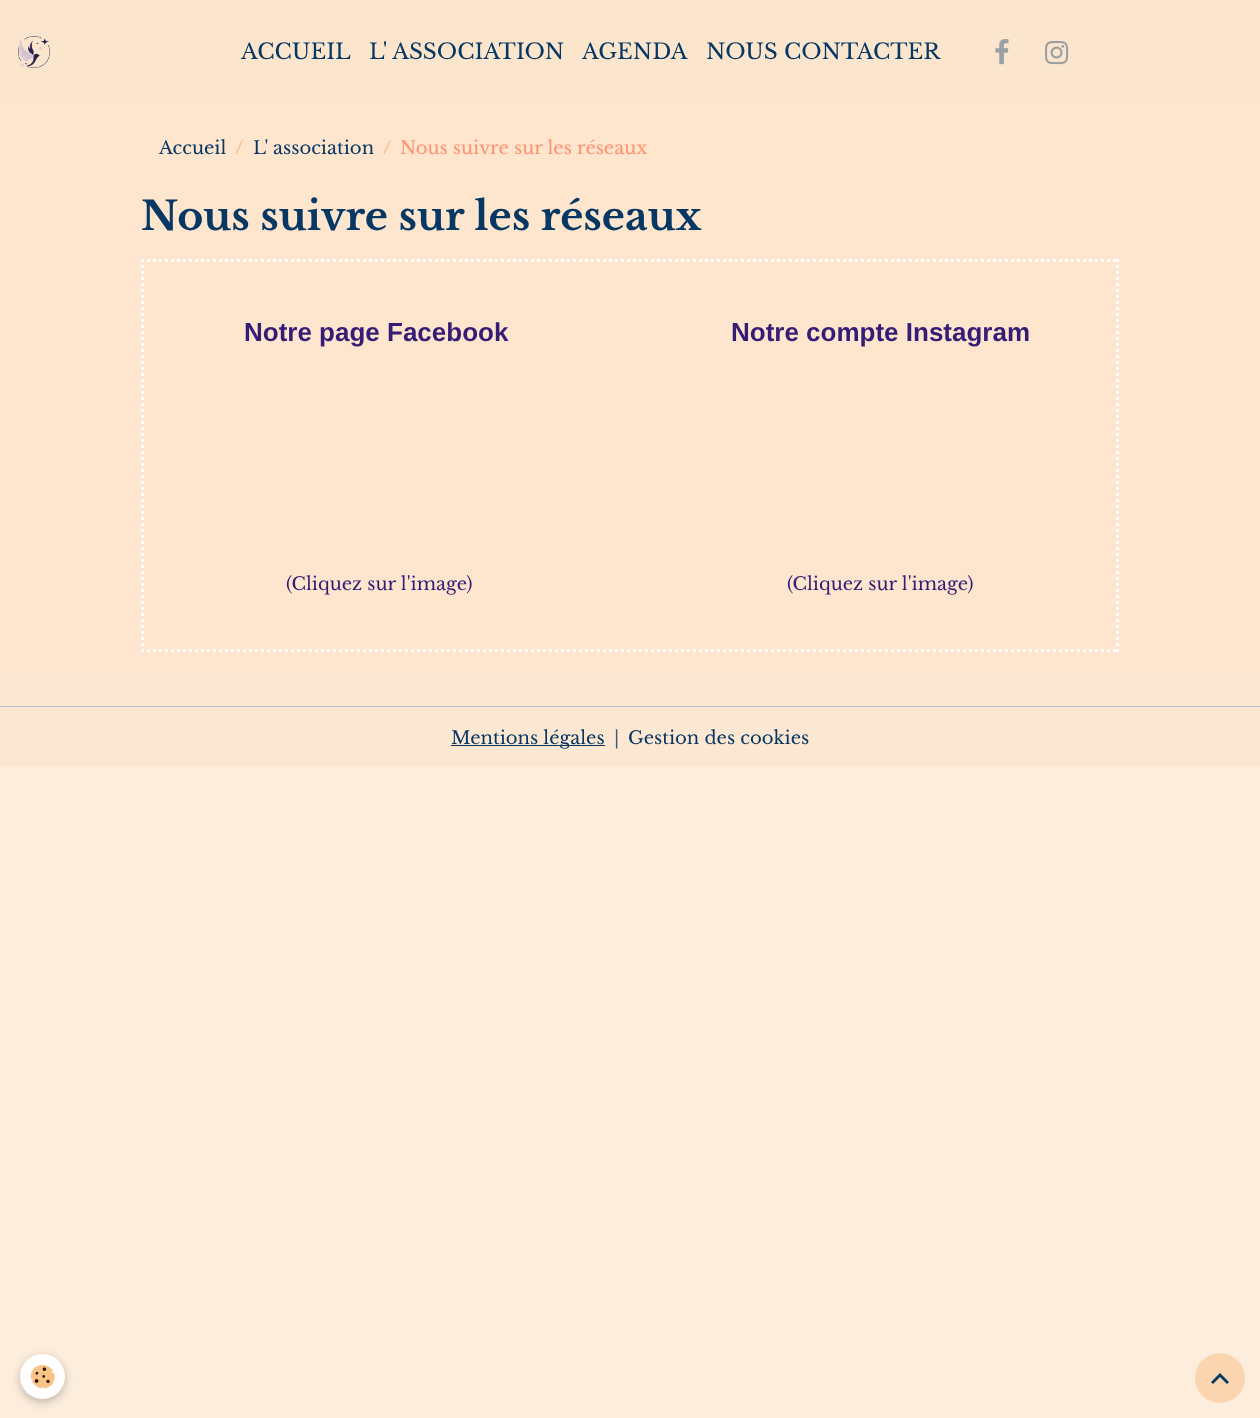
<?xml version="1.0" encoding="UTF-8"?>
<svg xmlns="http://www.w3.org/2000/svg" width="1260" height="1418">
    <defs>
        <filter id="blur1" x="-50%" y="-200%" width="200%" height="500%"><feGaussianBlur stdDeviation="5"/></filter>
    </defs>
    <rect width="100%" height="100%" fill="#FDEDDC"/>
    <rect x="0" y="0" width="1260" height="104" fill="#FCE5CD"/>
    <image x="18" y="36" width="32" height="32" href="img_01.png"/>
    <text x="241" y="59" font-family="Libre Baskerville" font-size="21.6" fill="#073763">ACCUEIL</text>
    <text x="369" y="59" font-family="Libre Baskerville" font-size="21.6" fill="#073763">L' ASSOCIATION</text>
    <text x="582" y="59" font-family="Libre Baskerville" font-size="21.6" fill="#073763">AGENDA</text>
    <text x="706" y="59" font-family="Libre Baskerville" font-size="21.6" fill="#073763">NOUS CONTACTER</text>
    <image x="995" y="39" width="14" height="26" href="img_02.png"/>
    <image x="1045" y="41" width="24" height="24" href="img_03.png"/>
    <rect x="0.5" y="104.5" width="1259" height="564" fill="none" stroke="#FCE6CF"/>
    <rect x="1" y="105" width="1258" height="563" fill="#FDE5CE"/>
    <text x="159" y="154" font-family="Libre Baskerville" font-size="18" fill="#073763">Accueil</text>
    <text x="235" y="154" font-family="Libre Baskerville" font-size="18" fill="#F6B26B">/</text>
    <text x="253" y="154" font-family="Libre Baskerville" font-size="18" fill="#073763">L' association</text>
    <text x="383" y="154" font-family="Libre Baskerville" font-size="18" fill="#F6B26B">/</text>
    <text x="400" y="154" font-family="Libre Baskerville" font-size="18" fill="#FF9371">Nous suivre sur les réseaux</text>
    <text x="141" y="230" font-family="Libre Baskerville" font-size="39.6" font-weight="700" fill="#073763">Nous suivre sur les réseaux</text>
    <path d="M 141 260.5 H 1119" fill="none" stroke="#FFFFFF" stroke-width="3" stroke-dasharray="3 3"/>
    <path d="M 1117.5 259 V 652" fill="none" stroke="#FFFFFF" stroke-width="3" stroke-dasharray="3 3"/>
    <path d="M 141 650.5 H 1119" fill="none" stroke="#FFFFFF" stroke-width="3" stroke-dasharray="3 3"/>
    <path d="M 142.5 259 V 652" fill="none" stroke="#FFFFFF" stroke-width="3" stroke-dasharray="3 3"/>
    <text x="244" y="341" font-family="Liberation Sans" font-size="26" font-weight="700" fill="#351C75">Notre page Facebook</text>
    <text x="286" y="590" font-family="Libre Baskerville" font-size="18" fill="#351C75">(Cliquez sur l'image)</text>
    <text x="731" y="341" font-family="Liberation Sans" font-size="26" font-weight="700" fill="#351C75">Notre compte Instagram</text>
    <text x="787" y="590" font-family="Libre Baskerville" font-size="18" fill="#351C75">(Cliquez sur l'image)</text>
    <rect x="0" y="670" width="1260" height="97" fill="#FCE7D2"/>
    <rect x="0" y="669" width="1260" height="1" fill="#FCE6CF"/>
    <rect x="0" y="706" width="1260" height="1" fill="#B5C3D0"/>
    <rect x="451" y="745" width="154" height="1" fill="#073763"/>
    <text x="451" y="744" font-family="Libre Baskerville" font-size="18" fill="#073763">Mentions légales</text>
    <text x="614" y="744" font-family="Libre Baskerville" font-size="18" fill="#385A79">|</text>
    <text x="628" y="744" font-family="Libre Baskerville" font-size="18" fill="#073763">Gestion des cookies</text>
    <rect x="20" y="1357" width="45" height="45" rx="22.5" fill="#000000" fill-opacity="0.24" filter="url(#blur1)"/>
    <circle cx="42.5" cy="1376.5" r="22.5" fill="#FFFFFF"/>
    <image x="30" y="1364" width="25" height="25" href="img_04.png"/>
    <circle cx="1220" cy="1378" r="25" fill="#FAD5AF"/>
    <path d="M 1220 1373 L 1229 1382 L 1227 1384 L 1220 1377 L 1213 1384 L 1211 1382 Z" fill="#073763"/>
</svg>
